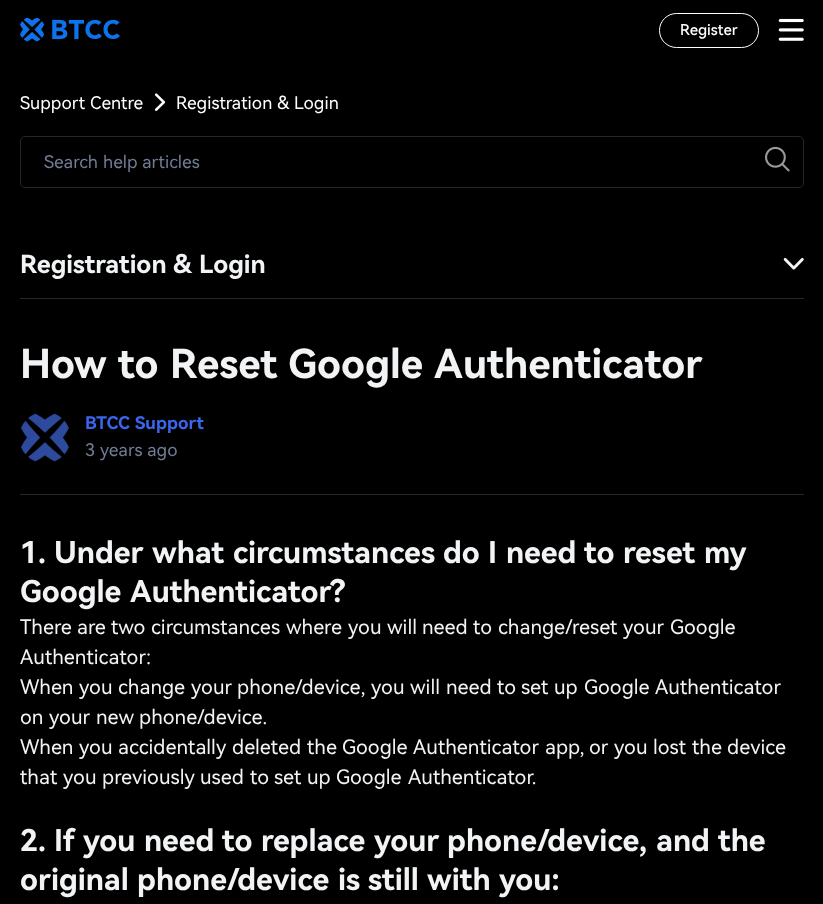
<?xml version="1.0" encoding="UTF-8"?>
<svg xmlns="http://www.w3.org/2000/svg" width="823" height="904">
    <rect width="100%" height="100%" fill="#000000"/>
    <image x="20" y="18" width="100" height="24" href="img_01.png"/>
    <rect x="659.5" y="13.5" width="99" height="34" rx="17" fill="none" stroke="#FFFFFF"/>
    <text x="680" y="35" font-family="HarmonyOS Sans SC" font-size="15" font-weight="500" fill="#FFFFFF">Register</text>
    <image x="778" y="18" width="26" height="23" href="img_02.png"/>
    <text x="20" y="109" font-family="HarmonyOS Sans SC" font-size="17.5" fill="#FFFFFF">Support</text>
    <text x="90" y="109" font-family="HarmonyOS Sans SC" font-size="17.5" fill="#FFFFFF">Centre</text>
    <image x="154" y="93" width="12" height="18" href="img_03.png"/>
    <text x="176" y="109" font-family="HarmonyOS Sans SC" font-size="17.5" fill="#FFFFFF">Registration</text>
    <text x="277" y="109" font-family="HarmonyOS Sans SC" font-size="17.5" fill="#FFFFFF">&amp;</text>
    <text x="294" y="109" font-family="HarmonyOS Sans SC" font-size="17.5" fill="#FFFFFF">Login</text>
    <rect x="20.5" y="136.5" width="783" height="51" rx="4.5" fill="none" stroke="#212830"/>
    <text x="44" y="168" font-family="HarmonyOS Sans SC" font-size="17.5" fill="#717C95">Search</text>
    <text x="103" y="168" font-family="HarmonyOS Sans SC" font-size="17.5" fill="#717C95">help</text>
    <text x="142" y="168" font-family="HarmonyOS Sans SC" font-size="17.5" fill="#717C95">articles</text>
    <image x="765" y="146" width="25" height="26" href="img_04.png"/>
    <rect x="20" y="298" width="784" height="1" fill="#212830"/>
    <text x="20" y="273" font-family="HarmonyOS Sans SC" font-size="25" font-weight="700" fill="#F1F3F5">Registration</text>
    <text x="173" y="273" font-family="HarmonyOS Sans SC" font-size="25" font-weight="700" fill="#F1F3F5">&amp;</text>
    <text x="199" y="273" font-family="HarmonyOS Sans SC" font-size="25" font-weight="700" fill="#F1F3F5">Login</text>
    <image x="783" y="257" width="21" height="13" href="img_05.png"/>
    <text x="20" y="378" font-family="HarmonyOS Sans SC" font-size="40" font-weight="700" fill="#F1F3F5">How</text>
    <text x="118" y="378" font-family="HarmonyOS Sans SC" font-size="40" font-weight="700" fill="#F1F3F5">to</text>
    <text x="170" y="378" font-family="HarmonyOS Sans SC" font-size="40" font-weight="700" fill="#F1F3F5">Reset</text>
    <text x="288" y="378" font-family="HarmonyOS Sans SC" font-size="40" font-weight="700" fill="#F1F3F5">Google</text>
    <text x="434" y="378" font-family="HarmonyOS Sans SC" font-size="40" font-weight="700" fill="#F1F3F5">Authenticator</text>
    <rect x="20" y="494" width="784" height="1" fill="#212830"/>
    <image x="20" y="413" width="49" height="49" href="img_06.png"/>
    <text x="85" y="429" font-family="HarmonyOS Sans SC" font-size="17.5" font-weight="700" fill="#3966EC">BTCC</text>
    <text x="135" y="429" font-family="HarmonyOS Sans SC" font-size="17.5" font-weight="700" fill="#3966EC">Support</text>
    <text x="85" y="456" font-family="HarmonyOS Sans SC" font-size="17.5" fill="#717C95">3</text>
    <text x="100" y="456" font-family="HarmonyOS Sans SC" font-size="17.5" fill="#717C95">years</text>
    <text x="147" y="456" font-family="HarmonyOS Sans SC" font-size="17.5" fill="#717C95">ago</text>
    <text x="20" y="563" font-family="HarmonyOS Sans SC" font-size="30" font-weight="700" fill="#F1F3F5">1.</text>
    <text x="54" y="563" font-family="HarmonyOS Sans SC" font-size="30" font-weight="700" fill="#F1F3F5">Under</text>
    <text x="152" y="563" font-family="HarmonyOS Sans SC" font-size="30" font-weight="700" fill="#F1F3F5">what</text>
    <text x="233" y="563" font-family="HarmonyOS Sans SC" font-size="30" font-weight="700" fill="#F1F3F5">circumstances</text>
    <text x="443" y="563" font-family="HarmonyOS Sans SC" font-size="30" font-weight="700" fill="#F1F3F5">do</text>
    <text x="488" y="563" font-family="HarmonyOS Sans SC" font-size="30" font-weight="700" fill="#F1F3F5">I</text>
    <text x="506" y="563" font-family="HarmonyOS Sans SC" font-size="30" font-weight="700" fill="#F1F3F5">need</text>
    <text x="584" y="563" font-family="HarmonyOS Sans SC" font-size="30" font-weight="700" fill="#F1F3F5">to</text>
    <text x="623" y="563" font-family="HarmonyOS Sans SC" font-size="30" font-weight="700" fill="#F1F3F5">reset</text>
    <text x="704" y="563" font-family="HarmonyOS Sans SC" font-size="30" font-weight="700" fill="#F1F3F5">my</text>
    <text x="20" y="602" font-family="HarmonyOS Sans SC" font-size="30" font-weight="700" fill="#F1F3F5">Google</text>
    <text x="130" y="602" font-family="HarmonyOS Sans SC" font-size="30" font-weight="700" fill="#F1F3F5">Authenticator?</text>
    <text x="20" y="634" font-family="HarmonyOS Sans SC" font-size="20" fill="#F1F3F5">There</text>
    <text x="77" y="634" font-family="HarmonyOS Sans SC" font-size="20" fill="#F1F3F5">are</text>
    <text x="111" y="634" font-family="HarmonyOS Sans SC" font-size="20" fill="#F1F3F5">two</text>
    <text x="151" y="634" font-family="HarmonyOS Sans SC" font-size="20" fill="#F1F3F5">circumstances</text>
    <text x="286" y="634" font-family="HarmonyOS Sans SC" font-size="20" fill="#F1F3F5">where</text>
    <text x="348" y="634" font-family="HarmonyOS Sans SC" font-size="20" fill="#F1F3F5">you</text>
    <text x="387" y="634" font-family="HarmonyOS Sans SC" font-size="20" fill="#F1F3F5">will</text>
    <text x="422" y="634" font-family="HarmonyOS Sans SC" font-size="20" fill="#F1F3F5">need</text>
    <text x="473" y="634" font-family="HarmonyOS Sans SC" font-size="20" fill="#F1F3F5">to</text>
    <text x="498" y="634" font-family="HarmonyOS Sans SC" font-size="20" fill="#F1F3F5">change/reset</text>
    <text x="623" y="634" font-family="HarmonyOS Sans SC" font-size="20" fill="#F1F3F5">your</text>
    <text x="670" y="634" font-family="HarmonyOS Sans SC" font-size="20" fill="#F1F3F5">Google</text>
    <text font-family="HarmonyOS Sans SC" font-size="20" fill="#F1F3F5">
        <tspan x="20" y="664">Authenticator:</tspan>
        <tspan x="20" y="694">When</tspan>
    </text>
    <text x="79" y="694" font-family="HarmonyOS Sans SC" font-size="20" fill="#F1F3F5">you</text>
    <text x="118" y="694" font-family="HarmonyOS Sans SC" font-size="20" fill="#F1F3F5">change</text>
    <text x="191" y="694" font-family="HarmonyOS Sans SC" font-size="20" fill="#F1F3F5">your</text>
    <text x="237" y="694" font-family="HarmonyOS Sans SC" font-size="20" fill="#F1F3F5">phone/device,</text>
    <text x="371" y="694" font-family="HarmonyOS Sans SC" font-size="20" fill="#F1F3F5">you</text>
    <text x="410" y="694" font-family="HarmonyOS Sans SC" font-size="20" fill="#F1F3F5">will</text>
    <text x="446" y="694" font-family="HarmonyOS Sans SC" font-size="20" fill="#F1F3F5">need</text>
    <text x="497" y="694" font-family="HarmonyOS Sans SC" font-size="20" fill="#F1F3F5">to</text>
    <text x="521" y="694" font-family="HarmonyOS Sans SC" font-size="20" fill="#F1F3F5">set</text>
    <text x="554" y="694" font-family="HarmonyOS Sans SC" font-size="20" fill="#F1F3F5">up</text>
    <text x="584" y="694" font-family="HarmonyOS Sans SC" font-size="20" fill="#F1F3F5">Google</text>
    <text x="655" y="694" font-family="HarmonyOS Sans SC" font-size="20" fill="#F1F3F5">Authenticator</text>
    <text x="20" y="724" font-family="HarmonyOS Sans SC" font-size="20" fill="#F1F3F5">on</text>
    <text x="49" y="724" font-family="HarmonyOS Sans SC" font-size="20" fill="#F1F3F5">your</text>
    <text x="96" y="724" font-family="HarmonyOS Sans SC" font-size="20" fill="#F1F3F5">new</text>
    <text x="139" y="724" font-family="HarmonyOS Sans SC" font-size="20" fill="#F1F3F5">phone/device.</text>
    <text x="20" y="754" font-family="HarmonyOS Sans SC" font-size="20" fill="#F1F3F5">When</text>
    <text x="79" y="754" font-family="HarmonyOS Sans SC" font-size="20" fill="#F1F3F5">you</text>
    <text x="118" y="754" font-family="HarmonyOS Sans SC" font-size="20" fill="#F1F3F5">accidentally</text>
    <text x="232" y="754" font-family="HarmonyOS Sans SC" font-size="20" fill="#F1F3F5">deleted</text>
    <text x="307" y="754" font-family="HarmonyOS Sans SC" font-size="20" fill="#F1F3F5">the</text>
    <text x="342" y="754" font-family="HarmonyOS Sans SC" font-size="20" fill="#F1F3F5">Google</text>
    <text x="413" y="754" font-family="HarmonyOS Sans SC" font-size="20" fill="#F1F3F5">Authenticator</text>
    <text x="545" y="754" font-family="HarmonyOS Sans SC" font-size="20" fill="#F1F3F5">app,</text>
    <text x="589" y="754" font-family="HarmonyOS Sans SC" font-size="20" fill="#F1F3F5">or</text>
    <text x="614" y="754" font-family="HarmonyOS Sans SC" font-size="20" fill="#F1F3F5">you</text>
    <text x="653" y="754" font-family="HarmonyOS Sans SC" font-size="20" fill="#F1F3F5">lost</text>
    <text x="692" y="754" font-family="HarmonyOS Sans SC" font-size="20" fill="#F1F3F5">the</text>
    <text x="727" y="754" font-family="HarmonyOS Sans SC" font-size="20" fill="#F1F3F5">device</text>
    <text x="20" y="784" font-family="HarmonyOS Sans SC" font-size="20" fill="#F1F3F5">that</text>
    <text x="63" y="784" font-family="HarmonyOS Sans SC" font-size="20" fill="#F1F3F5">you</text>
    <text x="102" y="784" font-family="HarmonyOS Sans SC" font-size="20" fill="#F1F3F5">previously</text>
    <text x="200" y="784" font-family="HarmonyOS Sans SC" font-size="20" fill="#F1F3F5">used</text>
    <text x="250" y="784" font-family="HarmonyOS Sans SC" font-size="20" fill="#F1F3F5">to</text>
    <text x="274" y="784" font-family="HarmonyOS Sans SC" font-size="20" fill="#F1F3F5">set</text>
    <text x="307" y="784" font-family="HarmonyOS Sans SC" font-size="20" fill="#F1F3F5">up</text>
    <text x="336" y="784" font-family="HarmonyOS Sans SC" font-size="20" fill="#F1F3F5">Google</text>
    <text x="408" y="784" font-family="HarmonyOS Sans SC" font-size="20" fill="#F1F3F5">Authenticator.</text>
    <text x="20" y="851" font-family="HarmonyOS Sans SC" font-size="30" font-weight="700" fill="#F1F3F5">2.</text>
    <text x="54" y="851" font-family="HarmonyOS Sans SC" font-size="30" font-weight="700" fill="#F1F3F5">If</text>
    <text x="83" y="851" font-family="HarmonyOS Sans SC" font-size="30" font-weight="700" fill="#F1F3F5">you</text>
    <text x="144" y="851" font-family="HarmonyOS Sans SC" font-size="30" font-weight="700" fill="#F1F3F5">need</text>
    <text x="222" y="851" font-family="HarmonyOS Sans SC" font-size="30" font-weight="700" fill="#F1F3F5">to</text>
    <text x="261" y="851" font-family="HarmonyOS Sans SC" font-size="30" font-weight="700" fill="#F1F3F5">replace</text>
    <text x="374" y="851" font-family="HarmonyOS Sans SC" font-size="30" font-weight="700" fill="#F1F3F5">your</text>
    <text x="447" y="851" font-family="HarmonyOS Sans SC" font-size="30" font-weight="700" fill="#F1F3F5">phone/device,</text>
    <text x="656" y="851" font-family="HarmonyOS Sans SC" font-size="30" font-weight="700" fill="#F1F3F5">and</text>
    <text x="718" y="851" font-family="HarmonyOS Sans SC" font-size="30" font-weight="700" fill="#F1F3F5">the</text>
    <text x="20" y="890" font-family="HarmonyOS Sans SC" font-size="30" font-weight="700" fill="#F1F3F5">original</text>
    <text x="137" y="890" font-family="HarmonyOS Sans SC" font-size="30" font-weight="700" fill="#F1F3F5">phone/device</text>
    <text x="338" y="890" font-family="HarmonyOS Sans SC" font-size="30" font-weight="700" fill="#F1F3F5">is</text>
    <text x="368" y="890" font-family="HarmonyOS Sans SC" font-size="30" font-weight="700" fill="#F1F3F5">still</text>
    <text x="427" y="890" font-family="HarmonyOS Sans SC" font-size="30" font-weight="700" fill="#F1F3F5">with</text>
    <text x="499" y="890" font-family="HarmonyOS Sans SC" font-size="30" font-weight="700" fill="#F1F3F5">you:</text>
</svg>
